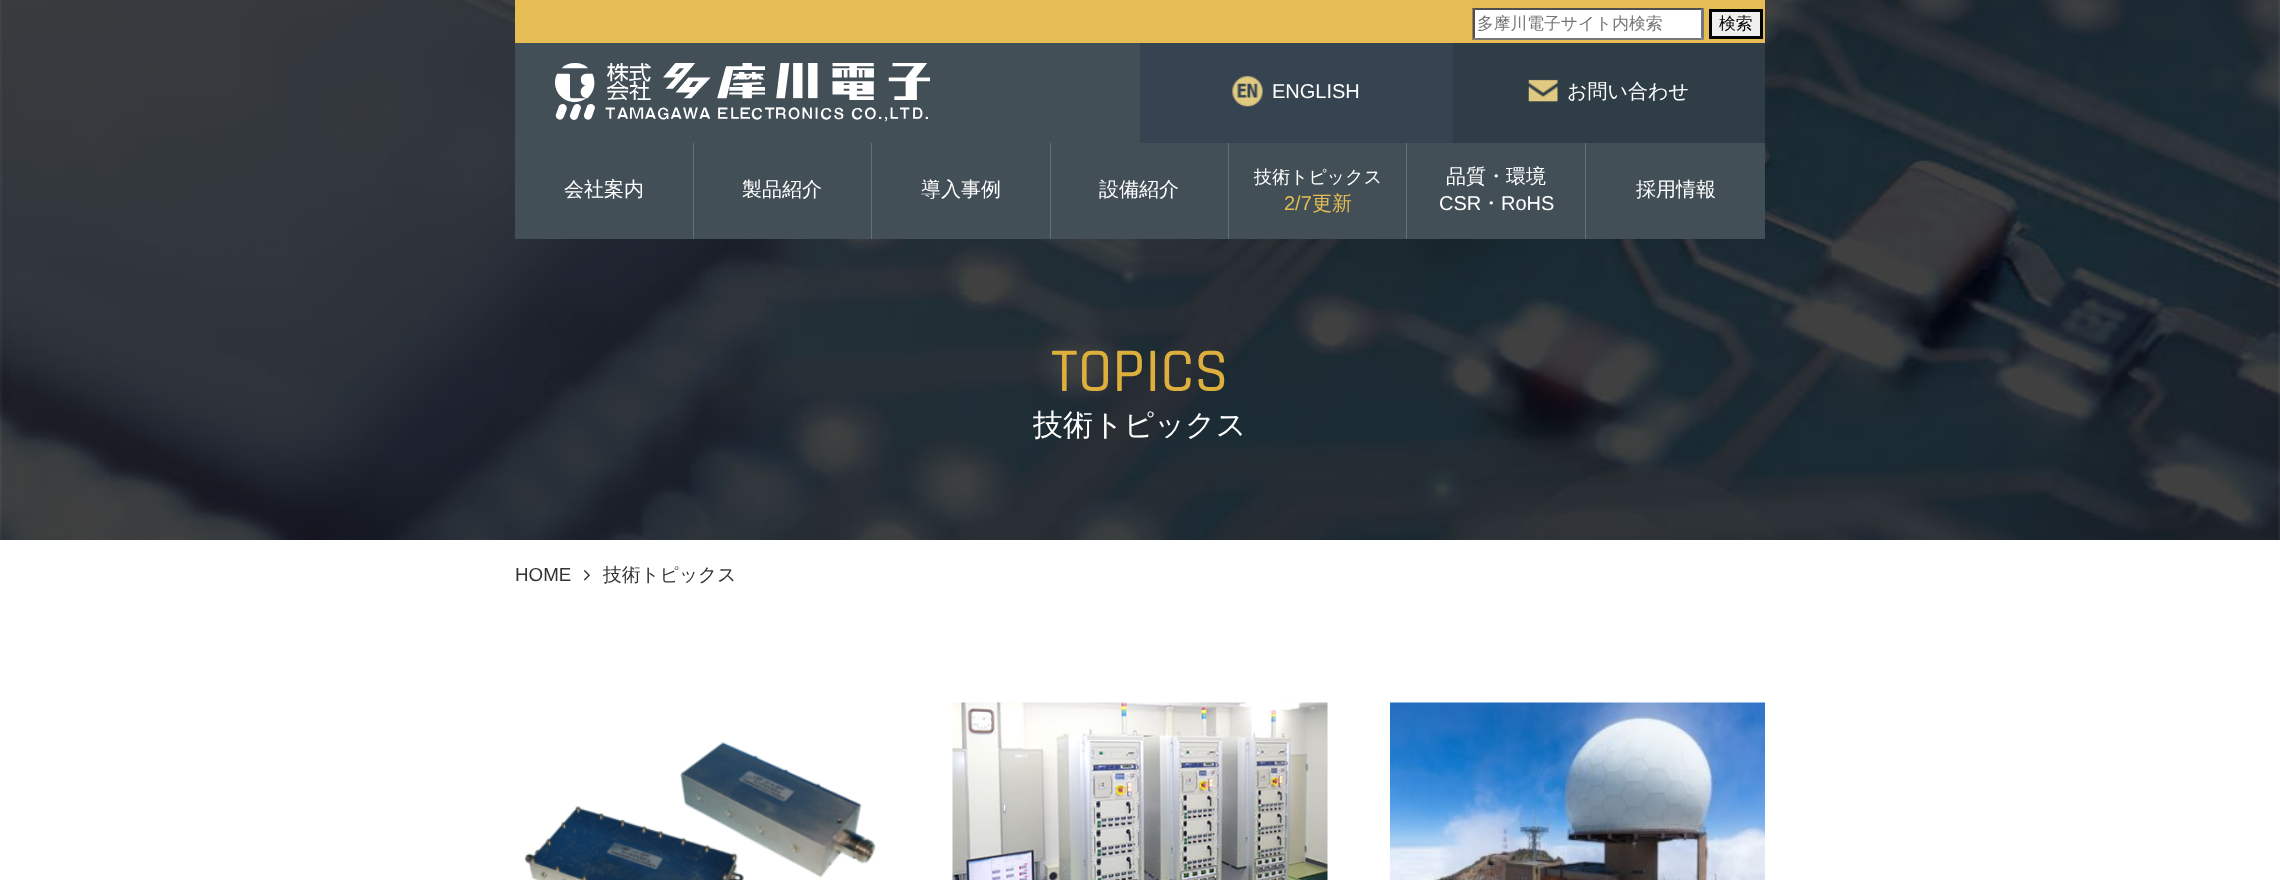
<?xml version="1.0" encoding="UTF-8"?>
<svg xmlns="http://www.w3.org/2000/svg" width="2280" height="880">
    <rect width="100%" height="100%" fill="#FFFFFF"/>
    <image x="0" y="0" width="2280" height="540" href="img_01.png"/>
    <rect x="515" y="43" width="1250" height="196" fill="#424F57"/>
    <rect x="515" y="0" width="1250" height="43" fill="#E5BD54"/>
    <rect x="1473" y="8" width="231" height="32" fill="#FFFFFF"/>
    <path d="M 1472 8 H 1704 L 1701 10 H 1475 Z" fill="#4F4F4F"/>
    <path d="M 1704 7.5 V 40 L 1701 37.5 V 10 Z" fill="#767676"/>
    <path d="M 1704 40 H 1472 L 1475 38 H 1701 Z" fill="#767676"/>
    <path d="M 1472.5 40 V 7.5 L 1475 10 V 37.5 Z" fill="#4F4F4F"/>
    <text x="1477" y="29" font-family="WenQuanYi Zen Hei" font-size="16.75" font-weight="500" fill="#757575">多摩川電子サイト内検索</text>
    <rect x="1710.5" y="10.5" width="51" height="27" fill="#EFEFEF" stroke="#000000" stroke-width="3"/>
    <text x="1719" y="29" font-family="WenQuanYi Zen Hei" font-size="16.75" font-weight="500" fill="#000000">検索</text>
    <image x="555" y="63" width="375" height="59" href="img_02.png"/>
    <rect x="1140" y="43" width="313" height="100" fill="#354450"/>
    <image x="1232" y="76" width="31" height="31" href="img_03.png"/>
    <text x="1272" y="98" font-family="Liberation Sans" font-size="20" fill="#FFFFFF">ENGLISH</text>
    <rect x="1453" y="43" width="312" height="100" fill="#2F3D47"/>
    <image x="1528" y="79" width="30" height="23" href="img_04.png"/>
    <text x="1567" y="98" font-family="WenQuanYi Zen Hei" font-size="20" font-weight="500" fill="#FFFFFF">お問い合わせ</text>
    <rect x="693" y="143" width="1" height="96" fill="#5C7181"/>
    <text x="564" y="196" font-family="WenQuanYi Zen Hei" font-size="20" font-weight="500" fill="#FFFFFF">会社案内</text>
    <rect x="871" y="143" width="1" height="96" fill="#5C7181"/>
    <text x="742" y="196" font-family="WenQuanYi Zen Hei" font-size="20" font-weight="500" fill="#FFFFFF">製品紹介</text>
    <rect x="1050" y="143" width="1" height="96" fill="#5C7181"/>
    <text x="921" y="196" font-family="WenQuanYi Zen Hei" font-size="20" font-weight="500" fill="#FFFFFF">導入事例</text>
    <rect x="1228" y="143" width="1" height="96" fill="#5C7181"/>
    <text x="1099" y="196" font-family="WenQuanYi Zen Hei" font-size="20" font-weight="500" fill="#FFFFFF">設備紹介</text>
    <rect x="1406" y="143" width="1" height="96" fill="#5C7181"/>
    <text x="1254" y="183" font-family="WenQuanYi Zen Hei" font-size="18" font-weight="500" fill="#FFFFFF">技術トピックス</text>
    <text x="1284" y="210" font-family="Liberation Sans" font-size="20" fill="#E5BD54">2/7</text>
    <text x="1312" y="210" font-family="WenQuanYi Zen Hei" font-size="20" font-weight="500" fill="#E5BD54">更新</text>
    <rect x="1585" y="143" width="1" height="96" fill="#5C7181"/>
    <text x="1446" y="183" font-family="WenQuanYi Zen Hei" font-size="20" font-weight="500" fill="#FFFFFF">品質・環境</text>
    <text x="1439" y="210" font-family="Liberation Sans" font-size="20" fill="#FFFFFF">CSR</text>
    <text x="1481" y="210" font-family="WenQuanYi Zen Hei" font-size="20" font-weight="500" fill="#FFFFFF">・</text>
    <text x="1501" y="210" font-family="Liberation Sans" font-size="20" fill="#FFFFFF">RoHS</text>
    <text x="1636" y="196" font-family="WenQuanYi Zen Hei" font-size="20" font-weight="500" fill="#FFFFFF">採用情報</text>
    <text x="1051" y="391" font-family="Rajdhani" font-size="62.5" font-weight="500" fill="#DDAF3C">TOPICS</text>
    <text x="1033" y="435" font-family="WenQuanYi Zen Hei" font-size="30" font-weight="500" fill="#FFFFFF">技術トピックス</text>
    <text x="515" y="581" font-family="Liberation Sans" font-size="18.75" fill="#333333">HOME</text>
    <image x="583" y="570" width="7" height="11" href="img_05.png"/>
    <text x="603" y="581" font-family="WenQuanYi Zen Hei" font-size="18.75" font-weight="500" fill="#333333">技術トピックス</text>
    <image x="524" y="742" width="352" height="138" href="img_06.png"/>
    <image x="952" y="702" width="376" height="178" href="img_07.png"/>
    <image x="1390" y="702" width="375" height="178" href="img_08.png"/>
</svg>
